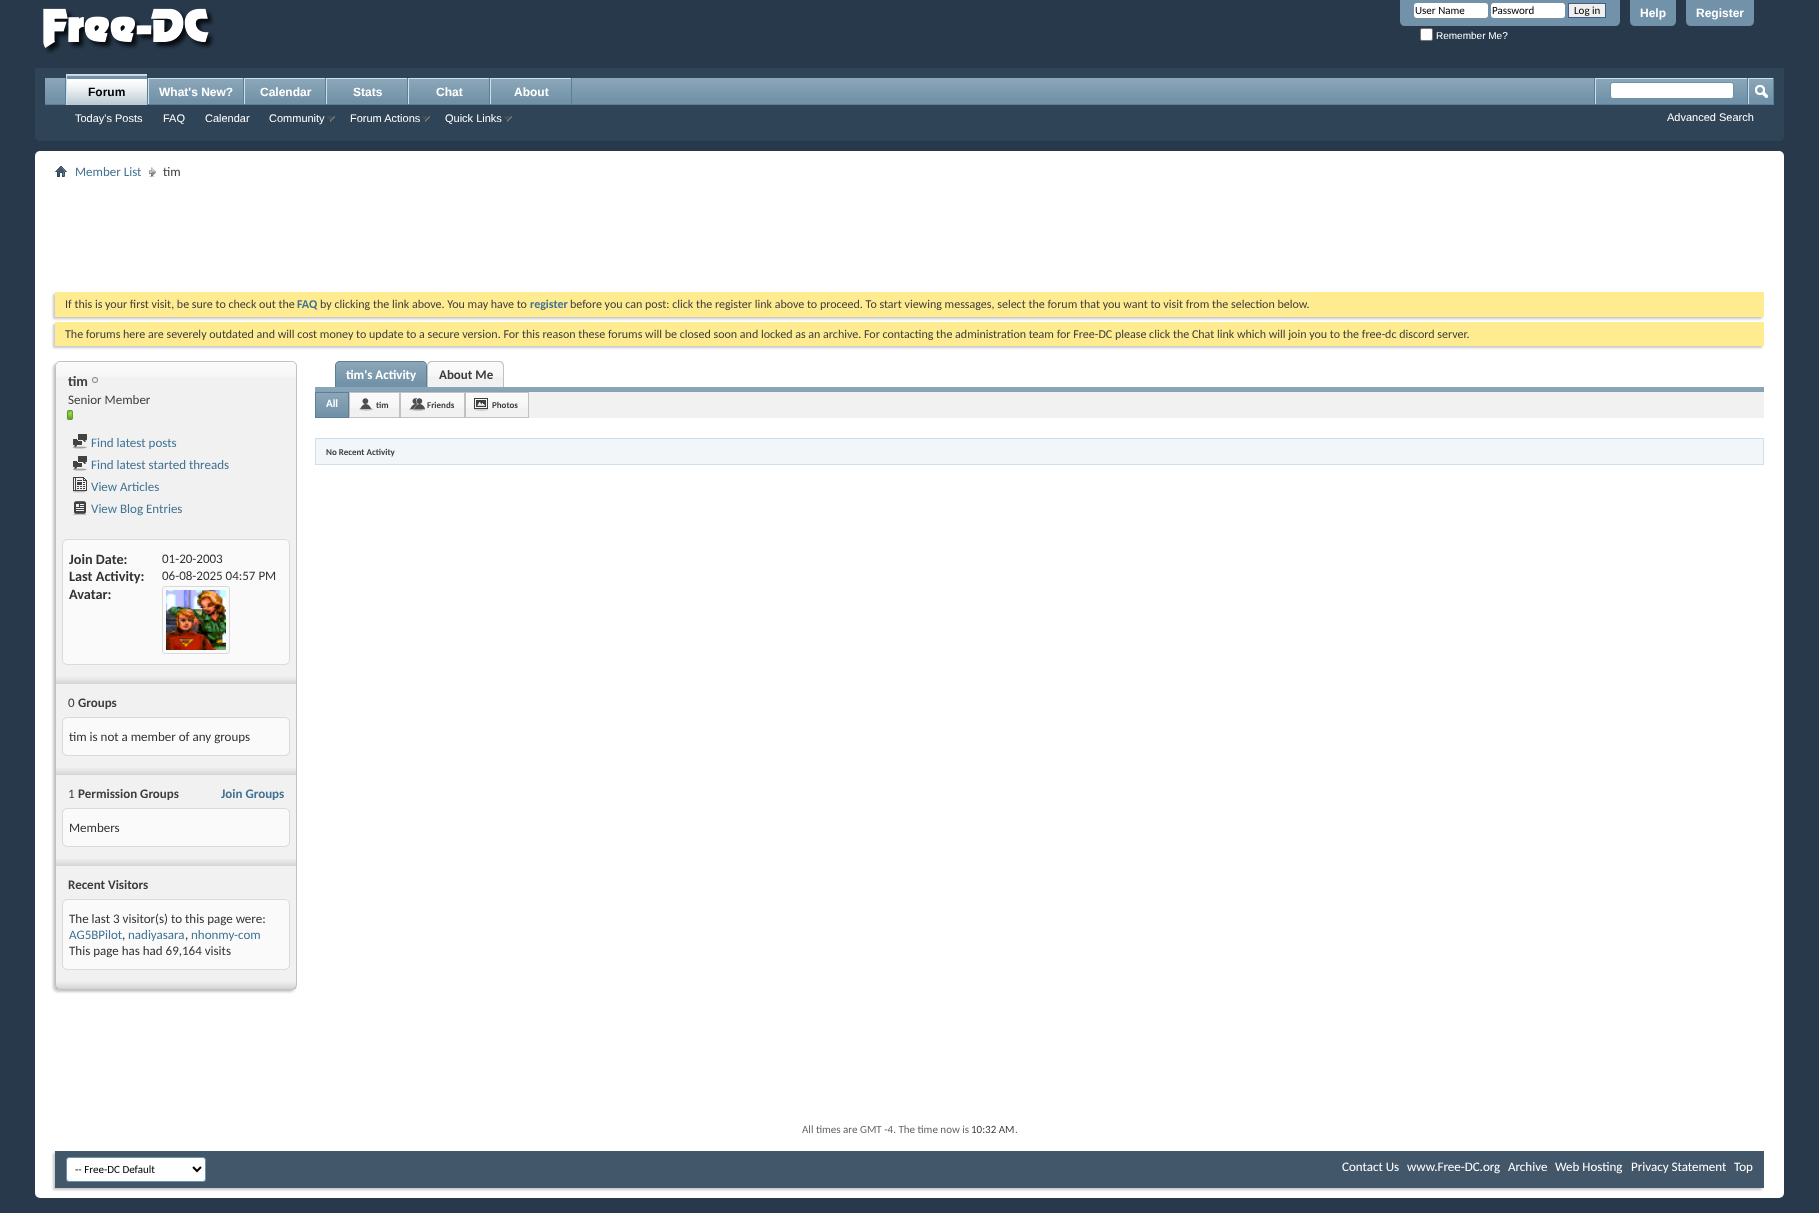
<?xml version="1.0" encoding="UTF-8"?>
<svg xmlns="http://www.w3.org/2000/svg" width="1819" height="1213">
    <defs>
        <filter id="blur1" x="-50%" y="-200%" width="200%" height="500%"><feGaussianBlur stdDeviation="1"/></filter>
    </defs>
    <rect width="100%" height="100%" fill="#27394B"/>
    <image x="43" y="8" width="172" height="46" href="img_01.png"/>
    <path d="M 1400 0 H 1620 V 21 C 1620 24 1618 26 1615 26 H 1405 C 1402 26 1400 24 1400 21 Z" fill="#7192A8"/>
    <rect x="1414" y="3" width="74" height="15" rx="3" fill="#FFFFFF"/>
    <text x="1415" y="14" font-family="Carlito" font-size="11" fill="#000000">User Name</text>
    <rect x="1491" y="3" width="74" height="15" rx="3" fill="#FFFFFF"/>
    <text x="1492" y="14" font-family="Carlito" font-size="11" fill="#000000">Password</text>
    <rect x="1568.5" y="3.5" width="37" height="14" fill="#EFEFEF" stroke="#415D8D"/>
    <text x="1574" y="14" font-family="Carlito" font-size="11" fill="#000000">Log in</text>
    <rect x="1420.5" y="28.5" width="12" height="12" rx="1.5" fill="#FFFFFF" stroke="#767676"/>
    <text x="1436" y="39" font-family="Liberation Sans" font-size="10" fill="#FFFFFF">Remember Me?</text>
    <path d="M 1630 0 H 1676 V 21 C 1676 24 1674 26 1671 26 H 1635 C 1632 26 1630 24 1630 21 Z" fill="#7192A8"/>
    <text x="1640" y="17" font-family="Liberation Sans" font-size="12" font-weight="700" fill="#FFFFFF">Help</text>
    <path d="M 1686 0 H 1754 V 21 C 1754 24 1752 26 1749 26 H 1691 C 1688 26 1686 24 1686 21 Z" fill="#7192A8"/>
    <text x="1696" y="17" font-family="Liberation Sans" font-size="12" font-weight="700" fill="#FFFFFF">Register</text>
    <path d="M 35 68 H 1784 V 136 C 1784 139 1782 141 1779 141 H 40 C 37 141 35 139 35 136 Z" fill="#2F4456"/>
    <rect x="45" y="78" width="1728" height="26" fill="#7192A8"/>
    <image x="45" y="78" width="1728" height="20" href="img_02.png"/>
    <rect x="147" y="78" width="1" height="26" fill="#5A7F97"/>
    <rect x="65" y="78" width="1" height="26" fill="#5A7F97"/>
    <rect x="243" y="78" width="1" height="27" fill="#5A7F97"/>
    <rect x="148" y="78" width="95" height="1" fill="#CEDFEB"/>
    <rect x="148" y="78" width="1" height="27" fill="#CEDFEB"/>
    <rect x="325" y="78" width="1" height="27" fill="#5A7F97"/>
    <rect x="244" y="78" width="81" height="1" fill="#CEDFEB"/>
    <rect x="244" y="78" width="1" height="27" fill="#CEDFEB"/>
    <rect x="407" y="78" width="1" height="27" fill="#5A7F97"/>
    <rect x="326" y="78" width="81" height="1" fill="#CEDFEB"/>
    <rect x="326" y="78" width="1" height="27" fill="#CEDFEB"/>
    <rect x="489" y="78" width="1" height="27" fill="#5A7F97"/>
    <rect x="408" y="78" width="81" height="1" fill="#CEDFEB"/>
    <rect x="408" y="78" width="1" height="27" fill="#CEDFEB"/>
    <rect x="571" y="78" width="1" height="27" fill="#5A7F97"/>
    <rect x="490" y="78" width="81" height="1" fill="#CEDFEB"/>
    <rect x="490" y="78" width="1" height="27" fill="#CEDFEB"/>
    <rect x="45" y="104" width="1729" height="1" fill="#5A7F97"/>
    <rect x="67" y="75" width="80" height="30" fill="#7192A8"/>
    <image x="67" y="75" width="80" height="30" href="img_03.png"/>
    <rect x="66" y="74" width="81" height="1" fill="#CEDFEB"/>
    <rect x="66" y="74" width="1" height="31" fill="#CEDFEB"/>
    <text x="88" y="96" font-family="Liberation Sans" font-size="12" font-weight="700" fill="#000000">Forum</text>
    <text x="75" y="122" font-family="Liberation Sans" font-size="11" fill="#FFFFFF">Today's Posts</text>
    <text x="163" y="122" font-family="Liberation Sans" font-size="11" fill="#FFFFFF">FAQ</text>
    <text x="205" y="122" font-family="Liberation Sans" font-size="11" fill="#FFFFFF">Calendar</text>
    <text x="269" y="122" font-family="Liberation Sans" font-size="11" fill="#FFFFFF">Community</text>
    <image x="326" y="116" width="9" height="6" href="img_04.png"/>
    <text x="350" y="122" font-family="Liberation Sans" font-size="11" fill="#FFFFFF">Forum Actions</text>
    <image x="421" y="116" width="9" height="6" href="img_04.png"/>
    <text x="445" y="122" font-family="Liberation Sans" font-size="11" fill="#FFFFFF">Quick Links</text>
    <image x="503" y="116" width="9" height="6" href="img_04.png"/>
    <rect x="149" y="79" width="94" height="19" fill="#7192A8"/>
    <image x="149" y="79" width="94" height="20" href="img_05.png"/>
    <text x="159" y="96" font-family="Liberation Sans" font-size="12" font-weight="700" fill="#FFFFFF">What's New?</text>
    <rect x="245" y="79" width="80" height="19" fill="#7192A8"/>
    <image x="245" y="79" width="80" height="20" href="img_06.png"/>
    <text x="260" y="96" font-family="Liberation Sans" font-size="12" font-weight="700" fill="#FFFFFF">Calendar</text>
    <rect x="327" y="79" width="80" height="19" fill="#7192A8"/>
    <image x="327" y="79" width="80" height="20" href="img_06.png"/>
    <text x="353" y="96" font-family="Liberation Sans" font-size="12" font-weight="700" fill="#FFFFFF">Stats</text>
    <rect x="409" y="79" width="80" height="19" fill="#7192A8"/>
    <image x="409" y="79" width="80" height="20" href="img_06.png"/>
    <text x="436" y="96" font-family="Liberation Sans" font-size="12" font-weight="700" fill="#FFFFFF">Chat</text>
    <rect x="491" y="79" width="80" height="19" fill="#7192A8"/>
    <image x="491" y="79" width="80" height="20" href="img_06.png"/>
    <text x="514" y="96" font-family="Liberation Sans" font-size="12" font-weight="700" fill="#FFFFFF">About</text>
    <rect x="1594" y="78" width="1" height="26" fill="#5A7F97"/>
    <rect x="1595" y="78" width="152" height="1" fill="#CEDFEB"/>
    <rect x="1595" y="78" width="1" height="26" fill="#CEDFEB"/>
    <rect x="1610.5" y="82.5" width="123" height="16" rx="2.5" fill="#FFFFFF" stroke="#6B91AB"/>
    <rect x="1773" y="78" width="1" height="26" fill="#5A7F97"/>
    <rect x="1747" y="78" width="1" height="26" fill="#5A7F97"/>
    <rect x="1748" y="78" width="25" height="1" fill="#CEDFEB"/>
    <rect x="1748" y="78" width="1" height="26" fill="#CEDFEB"/>
    <image x="1755" y="85" width="13" height="14" href="img_07.png"/>
    <text x="1667" y="121" font-family="Liberation Sans" font-size="11" fill="#FFFFFF">Advanced Search</text>
    <rect x="35" y="151" width="1749" height="1047" rx="5" fill="#FFFFFF"/>
    <image x="55" y="166" width="12" height="11" href="img_08.png"/>
    <image x="149" y="167" width="7" height="10" href="img_09.png"/>
    <text x="75" y="176" font-family="Carlito" font-size="13" fill="#417394">Member List</text>
    <text x="163" y="176" font-family="Carlito" font-size="13" fill="#3E3E3E">tim</text>
    <rect x="53" y="294" width="1709" height="25" fill="#C8C8C8" filter="url(#blur1)"/>
    <rect x="55" y="292" width="1709" height="25" fill="#FFEB90"/>
    <text x="65" y="308" font-family="Carlito" font-size="12" fill="#3E3E3E">If this is your first visit, be sure to check out the</text>
    <text x="297" y="308" font-family="Carlito" font-size="12" font-weight="700" fill="#417394">FAQ</text>
    <text x="320" y="308" font-family="Carlito" font-size="12" fill="#3E3E3E">by clicking the link above. You may have to</text>
    <text x="530" y="308" font-family="Carlito" font-size="12" font-weight="700" fill="#417394">register</text>
    <text x="570" y="308" font-family="Carlito" font-size="12" fill="#3E3E3E">before you can post: click the register link above to proceed. To start viewing messages, select the forum that you want to visit from the selection below.</text>
    <rect x="53" y="324" width="1709" height="24" fill="#C8C8C8" filter="url(#blur1)"/>
    <rect x="55" y="322" width="1709" height="24" fill="#FFEB90"/>
    <text x="65" y="338" font-family="Carlito" font-size="12" fill="#3E3E3E">The forums here are severely outdated and will cost money to update to a secure version. For this reason these forums will be closed soon and locked as an archive. For contacting the administration team for Free-DC please click the Chat link which will join you to the free-dc discord server.</text>
    <rect x="53" y="363" width="242" height="629" rx="5" fill="#C8C8C8" filter="url(#blur1)"/>
    <rect x="55" y="361" width="242" height="629" rx="5" fill="#F1F1F1"/>
    <image x="55" y="362" width="242" height="15" href="img_10.png"/>
    <rect x="55.5" y="361.5" width="241" height="628" rx="4.5" fill="none" stroke="#C1C1C1"/>
    <image x="58" y="362" width="236" height="1" href="img_11.png"/>
    <text x="68" y="386" font-family="Carlito" font-size="14.25" font-weight="700" fill="#3E3E3E">tim</text>
    <image x="92" y="377" width="6" height="6" href="img_12.png"/>
    <text x="68" y="404" font-family="Carlito" font-size="13" fill="#3E3E3E">Senior Member</text>
    <image x="66" y="410" width="7" height="10" href="img_13.png"/>
    <image x="72" y="434" width="15" height="15" href="img_14.png"/>
    <text x="91" y="447" font-family="Carlito" font-size="13" fill="#417394">Find latest posts</text>
    <image x="72" y="456" width="15" height="15" href="img_14.png"/>
    <text x="91" y="469" font-family="Carlito" font-size="13" fill="#417394">Find latest started threads</text>
    <image x="72" y="477" width="15" height="16" href="img_15.png"/>
    <text x="91" y="491" font-family="Carlito" font-size="13" fill="#417394">View Articles</text>
    <image x="72" y="501" width="15" height="14" href="img_16.png"/>
    <text x="91" y="513" font-family="Carlito" font-size="13" fill="#417394">View Blog Entries</text>
    <rect x="62.5" y="539.5" width="227" height="125" rx="4.5" fill="none" stroke="#DADADA"/>
    <rect x="63" y="540" width="226" height="124" rx="5" fill="#FAFAFA"/>
    <rect x="286" y="540" width="1" height="1" fill="#FAFAFA"/>
    <text x="69" y="564" font-family="Carlito" font-size="14.25" font-weight="700" fill="#333333">Join Date:</text>
    <text x="162" y="563" font-family="Carlito" font-size="13" fill="#333333">01-20-2003</text>
    <text x="69" y="581" font-family="Carlito" font-size="14.25" font-weight="700" fill="#333333">Last Activity:</text>
    <text x="162" y="580" font-family="Carlito" font-size="13" fill="#333333">06-08-2025 04:57 PM</text>
    <text x="69" y="599" font-family="Carlito" font-size="14.25" font-weight="700" fill="#333333">Avatar:</text>
    <rect x="162.5" y="586.5" width="67" height="67" rx="2.5" fill="none" stroke="#DADADA"/>
    <image x="166" y="590" width="60" height="60" href="img_17.png"/>
    <image x="56" y="677" width="240" height="7" href="img_18.png"/>
    <text x="68" y="707" font-family="Carlito" font-size="13" fill="#3E3E3E">0</text>
    <text x="78" y="707" font-family="Carlito" font-size="13" font-weight="700" fill="#3E3E3E">Groups</text>
    <rect x="62.5" y="717.5" width="227" height="38" rx="4.5" fill="none" stroke="#DADADA"/>
    <rect x="63" y="718" width="226" height="37" rx="5" fill="#FAFAFA"/>
    <rect x="286" y="718" width="1" height="1" fill="#FAFAFA"/>
    <text x="69" y="741" font-family="Carlito" font-size="13" fill="#333333">tim is not a member of any groups</text>
    <image x="56" y="768" width="240" height="7" href="img_18.png"/>
    <text x="68" y="798" font-family="Carlito" font-size="13" fill="#3E3E3E">1</text>
    <text x="78" y="798" font-family="Carlito" font-size="13" font-weight="700" fill="#3E3E3E">Permission Groups</text>
    <text x="221" y="798" font-family="Carlito" font-size="13" font-weight="700" fill="#417394">Join Groups</text>
    <rect x="62.5" y="808.5" width="227" height="38" rx="4.5" fill="none" stroke="#DADADA"/>
    <rect x="63" y="809" width="226" height="37" rx="5" fill="#FAFAFA"/>
    <rect x="286" y="809" width="1" height="1" fill="#FAFAFA"/>
    <text x="69" y="832" font-family="Carlito" font-size="13" fill="#333333">Members</text>
    <image x="56" y="859" width="240" height="7" href="img_18.png"/>
    <text x="68" y="889" font-family="Carlito" font-size="13" font-weight="700" fill="#3E3E3E">Recent Visitors</text>
    <rect x="62.5" y="899.5" width="227" height="70" rx="4.5" fill="none" stroke="#DADADA"/>
    <rect x="63" y="900" width="226" height="69" rx="5" fill="#FAFAFA"/>
    <rect x="286" y="900" width="1" height="1" fill="#FAFAFA"/>
    <text x="69" y="923" font-family="Carlito" font-size="13" fill="#333333">The last 3 visitor(s) to this page were:</text>
    <text x="69" y="939" font-family="Carlito" font-size="13" fill="#417394">AG5BPilot</text>
    <text x="122" y="939" font-family="Carlito" font-size="13" fill="#333333">,</text>
    <text x="128" y="939" font-family="Carlito" font-size="13" fill="#417394">nadiyasara</text>
    <text x="185" y="939" font-family="Carlito" font-size="13" fill="#333333">,</text>
    <text x="191" y="939" font-family="Carlito" font-size="13" fill="#417394">nhonmy-com</text>
    <text x="69" y="955" font-family="Carlito" font-size="13" fill="#333333">This page has had 69,164 visits</text>
    <image x="56" y="982" width="240" height="7" href="img_19.png"/>
    <path d="M 340 362 H 422 C 424 362 426 364 426 366 V 387 H 336 V 366 C 336 364 338 362 340 362 Z" fill="#7192A8"/>
    <image x="336" y="362" width="90" height="20" href="img_20.png"/>
    <path d="M 340 361 H 422 C 425 361 427 363 427 366 V 387 H 335 V 366 C 335 363 337 361 340 361 Z M 340 362 H 422 C 424 362 426 364 426 366 V 387 H 336 V 366 C 336 364 338 362 340 362 Z" fill="#5A7F97" fill-rule="evenodd"/>
    <text x="346" y="379" font-family="Carlito" font-size="13" font-weight="700" fill="#FFFFFF">tim's Activity</text>
    <path d="M 432 362 H 499 C 501 362 503 364 503 366 V 387 H 428 V 366 C 428 364 430 362 432 362 Z" fill="#F1F1F1"/>
    <image x="428" y="362" width="75" height="15" href="img_21.png"/>
    <path d="M 432 361 H 499 C 502 361 504 363 504 366 V 387 H 427 V 366 C 427 363 429 361 432 361 Z M 432 362 H 499 C 501 362 503 364 503 366 V 387 H 428 V 366 C 428 364 430 362 432 362 Z" fill="#C1C1C1" fill-rule="evenodd"/>
    <text x="439" y="379" font-family="Carlito" font-size="13" font-weight="700" fill="#3E3E3E">About Me</text>
    <rect x="315" y="387" width="1449" height="5" fill="#7192A8"/>
    <image x="315" y="387" width="1449" height="5" href="img_22.png"/>
    <rect x="350" y="392" width="1414" height="26" fill="#F1F1F1"/>
    <rect x="316" y="393" width="32" height="24" fill="#7192A8"/>
    <image x="316" y="393" width="32" height="20" href="img_23.png"/>
    <rect x="315.5" y="392.5" width="33" height="25" fill="none" stroke="#5A7F97"/>
    <text x="326" y="407" font-family="Carlito" font-size="11" font-weight="700" fill="#FFFFFF">All</text>
    <image x="350" y="393" width="49" height="15" href="img_24.png"/>
    <rect x="349.5" y="392.5" width="50" height="25" fill="none" stroke="#C1C1C1"/>
    <image x="359" y="398" width="14" height="13" href="img_25.png"/>
    <text x="376" y="408" font-family="Carlito" font-size="9" font-weight="700" fill="#3E3E3E">tim</text>
    <image x="401" y="393" width="63" height="15" href="img_26.png"/>
    <rect x="400.5" y="392.5" width="64" height="25" fill="none" stroke="#C1C1C1"/>
    <image x="409" y="398" width="16" height="13" href="img_27.png"/>
    <text x="427" y="408" font-family="Carlito" font-size="9" font-weight="700" fill="#3E3E3E">Friends</text>
    <image x="466" y="393" width="62" height="15" href="img_28.png"/>
    <rect x="465.5" y="392.5" width="63" height="25" fill="none" stroke="#C1C1C1"/>
    <image x="474" y="398" width="15" height="13" href="img_29.png"/>
    <text x="492" y="408" font-family="Carlito" font-size="9" font-weight="700" fill="#3E3E3E">Photos</text>
    <rect x="315.5" y="438.5" width="1448" height="26" fill="#F2F6F8" stroke="#CEDFEB"/>
    <text x="326" y="455" font-family="Carlito" font-size="9" font-weight="700" fill="#3E3E3E">No Recent Activity</text>
    <text x="802" y="1133" font-family="Carlito" font-size="11" fill="#666666">All times are GMT -4. The time now is</text>
    <text x="971" y="1133" font-family="Carlito" font-size="11" fill="#3E3E3E">10:32 AM</text>
    <text x="1015" y="1133" font-family="Carlito" font-size="11" fill="#666666">.</text>
    <rect x="53" y="1153" width="1709" height="37" fill="#C8C8C8" filter="url(#blur1)"/>
    <rect x="55" y="1151" width="1709" height="37" fill="#425769"/>
    <rect x="66.5" y="1157.5" width="139" height="24" rx="2.5" fill="#FFFFFF" stroke="#6B91AB"/>
    <path d="M 193 1167 L 197 1171 L 201 1167" fill="none" stroke="#000000" stroke-width="2"/>
    <text x="75" y="1173" font-family="Carlito" font-size="11" fill="#000000">-- Free-DC Default</text>
    <text x="1342" y="1171" font-family="Carlito" font-size="13" fill="#FFFFFF">Contact Us</text>
    <text x="1407" y="1171" font-family="Carlito" font-size="13" fill="#FFFFFF">www.Free-DC.org</text>
    <text x="1508" y="1171" font-family="Carlito" font-size="13" fill="#FFFFFF">Archive</text>
    <text x="1555" y="1171" font-family="Carlito" font-size="13" fill="#FFFFFF">Web Hosting</text>
    <text x="1631" y="1171" font-family="Carlito" font-size="13" fill="#FFFFFF">Privacy Statement</text>
    <text x="1734" y="1171" font-family="Carlito" font-size="13" fill="#FFFFFF">Top</text>
</svg>
